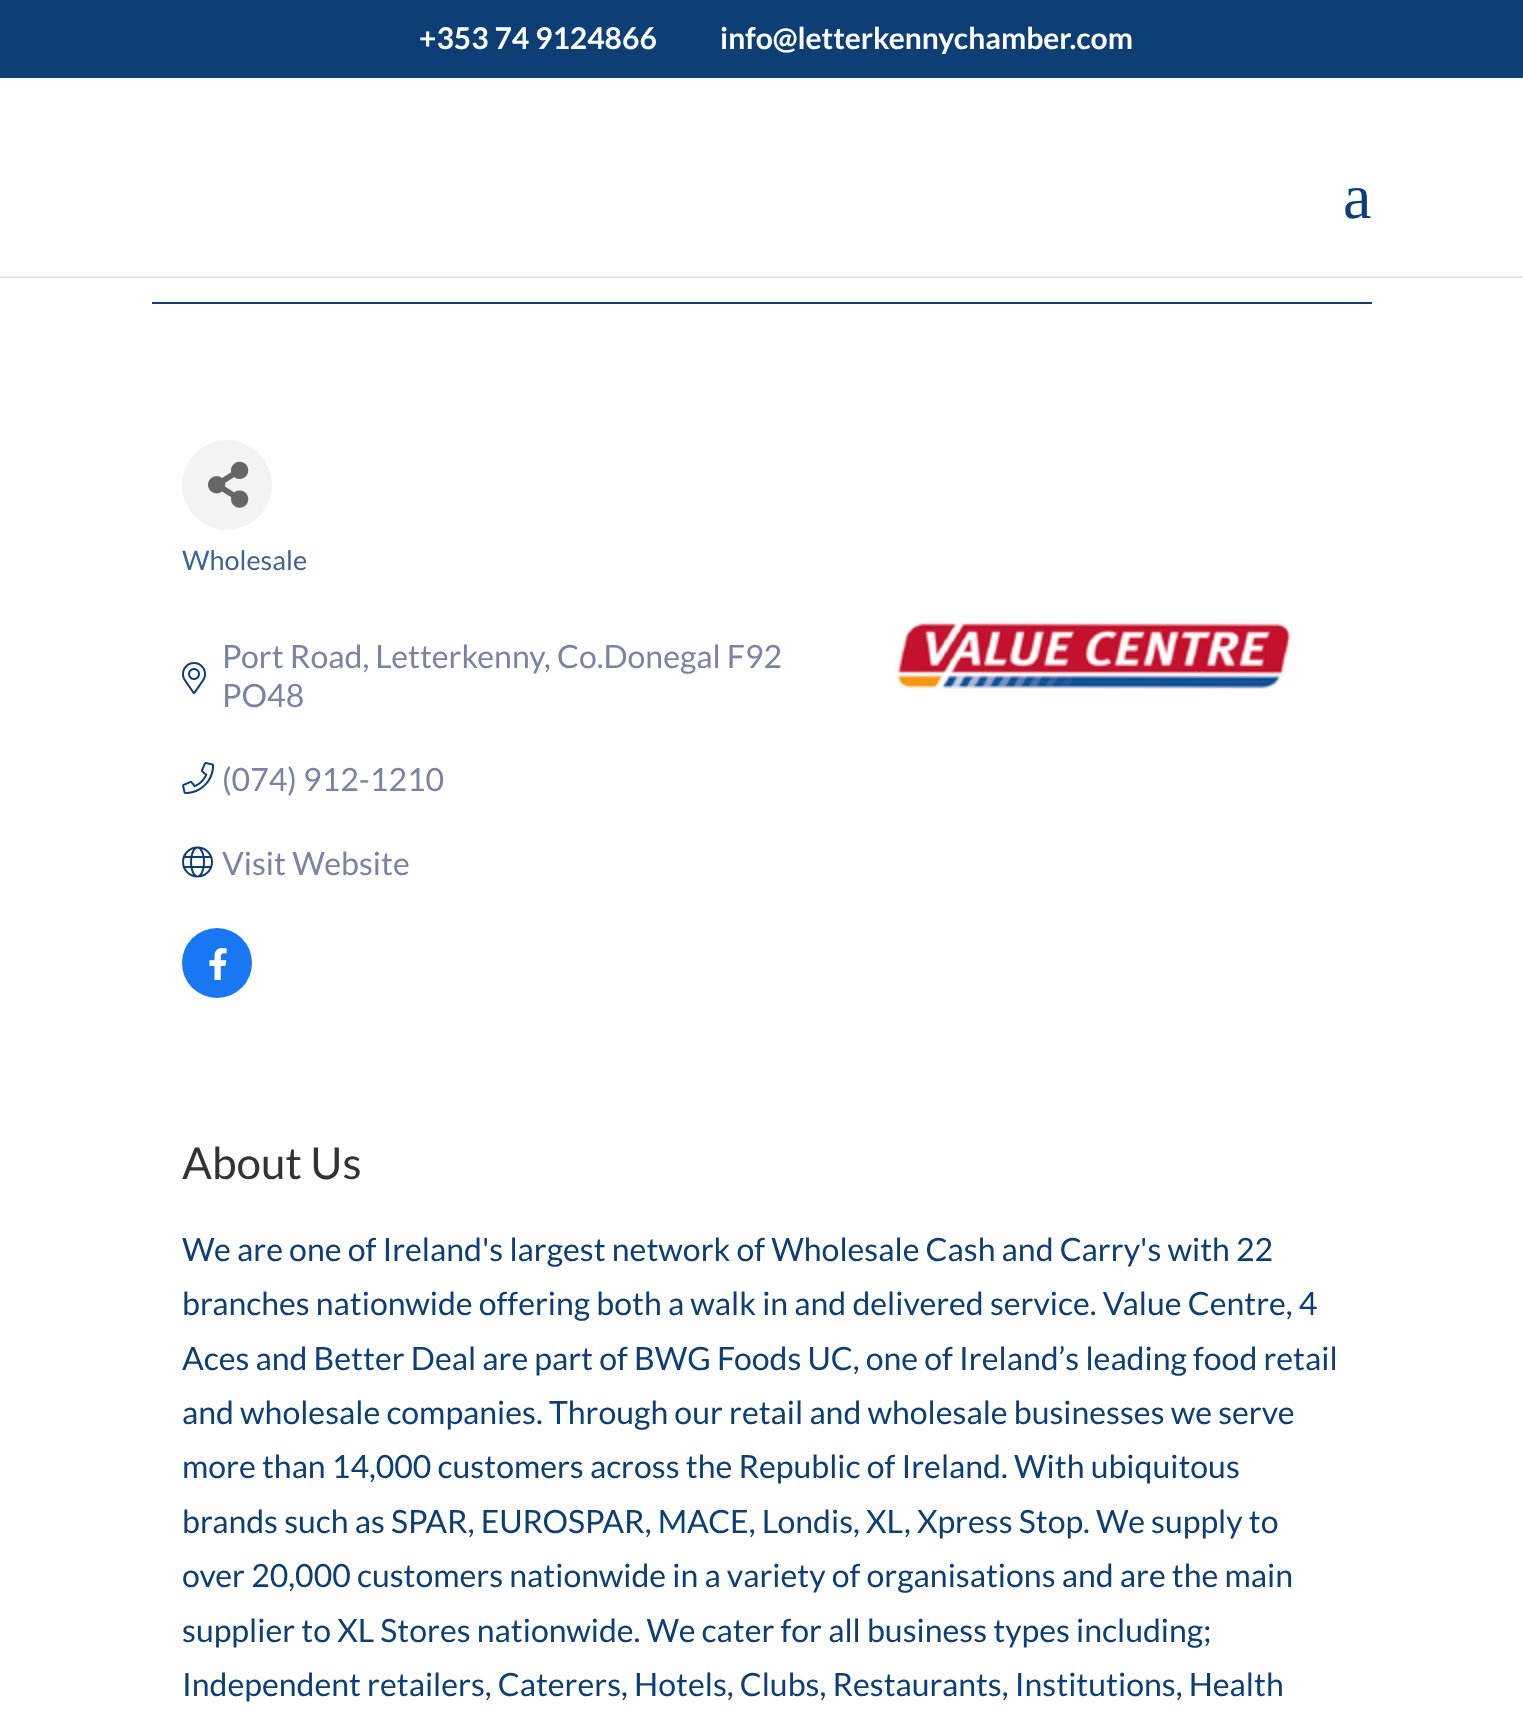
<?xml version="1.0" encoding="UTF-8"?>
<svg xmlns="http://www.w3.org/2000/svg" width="1523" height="1712">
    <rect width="100%" height="100%" fill="#FFFFFF"/>
    <rect x="0" y="0" width="1523" height="78" fill="#0D3E76"/>
    <text x="419" y="49" font-family="Lato" font-size="30" font-weight="700" fill="#FFFFFF">+353 74 9124866</text>
    <text x="720" y="49" font-family="Lato" font-size="30" font-weight="700" fill="#FFFFFF">info@letterkennychamber.com</text>
    <rect x="0" y="276" width="1523" height="2" fill="#000000" fill-opacity="0.1"/>
    <text x="1343" y="218" font-family="Liberation Serif" font-size="64" fill="#0D3E76">a</text>
    <rect x="152" y="302" width="1220" height="2" fill="#0D3E76"/>
    <circle cx="227" cy="485" r="45" fill="#F3F3F3"/>
    <image x="208" y="461" width="41" height="47" href="img_01.png"/>
    <text x="182" y="570" font-family="Lato" font-size="27" fill="#3D6591">Wholesale</text>
    <text x="222" y="668" font-family="Lato" font-size="32" fill="#7A82A6">Port Road, Letterkenny</text>
    <text x="544" y="668" font-family="Lato" font-size="32" fill="#7A82A6">, Co.Donegal F92</text>
    <image x="182" y="662" width="24" height="32" href="img_02.png"/>
    <text x="222" y="707" font-family="Lato" font-size="32" fill="#7A82A6">PO48</text>
    <image x="182" y="762" width="33" height="32" href="img_03.png"/>
    <text x="222" y="791" font-family="Lato" font-size="32" fill="#7A82A6">(074) 912-1210</text>
    <image x="182" y="846" width="31" height="32" href="img_04.png"/>
    <text x="222" y="875" font-family="Lato" font-size="32" fill="#7A82A6">Visit Website</text>
    <circle cx="217" cy="963" r="35" fill="#1877F2"/>
    <image x="209" y="948" width="18" height="32" href="img_05.png"/>
    <image x="894" y="620" width="397" height="69" href="img_06.png"/>
    <text x="182" y="1179" font-family="Lato" font-size="44" fill="#333333">About Us</text>
    <text font-family="Lato" font-size="32" fill="#0D3E76">
        <tspan x="182" y="1261">We are one of Ireland's largest network of Wholesale Cash and Carry's with 22</tspan>
        <tspan x="182" y="1315">branches nationwide offering both a walk in and delivered service. Value Centre, 4</tspan>
        <tspan x="182" y="1370">Aces and Better Deal are part of BWG Foods UC, one of Ireland’s leading food retail</tspan>
        <tspan x="182" y="1424">and wholesale companies. Through our retail and wholesale businesses we serve</tspan>
        <tspan x="182" y="1478">more than 14,000 customers across the Republic of Ireland. With ubiquitous</tspan>
        <tspan x="182" y="1533">brands such as SPAR, EUROSPAR, MACE, Londis, XL, Xpress Stop. We supply to</tspan>
        <tspan x="182" y="1587">over 20,000 customers nationwide in a variety of organisations and are the main</tspan>
        <tspan x="182" y="1642">supplier to XL Stores nationwide. We cater for all business types including;</tspan>
        <tspan x="182" y="1696">Independent retailers, Caterers, Hotels, Clubs, Restaurants, Institutions, Health</tspan>
    </text>
</svg>
